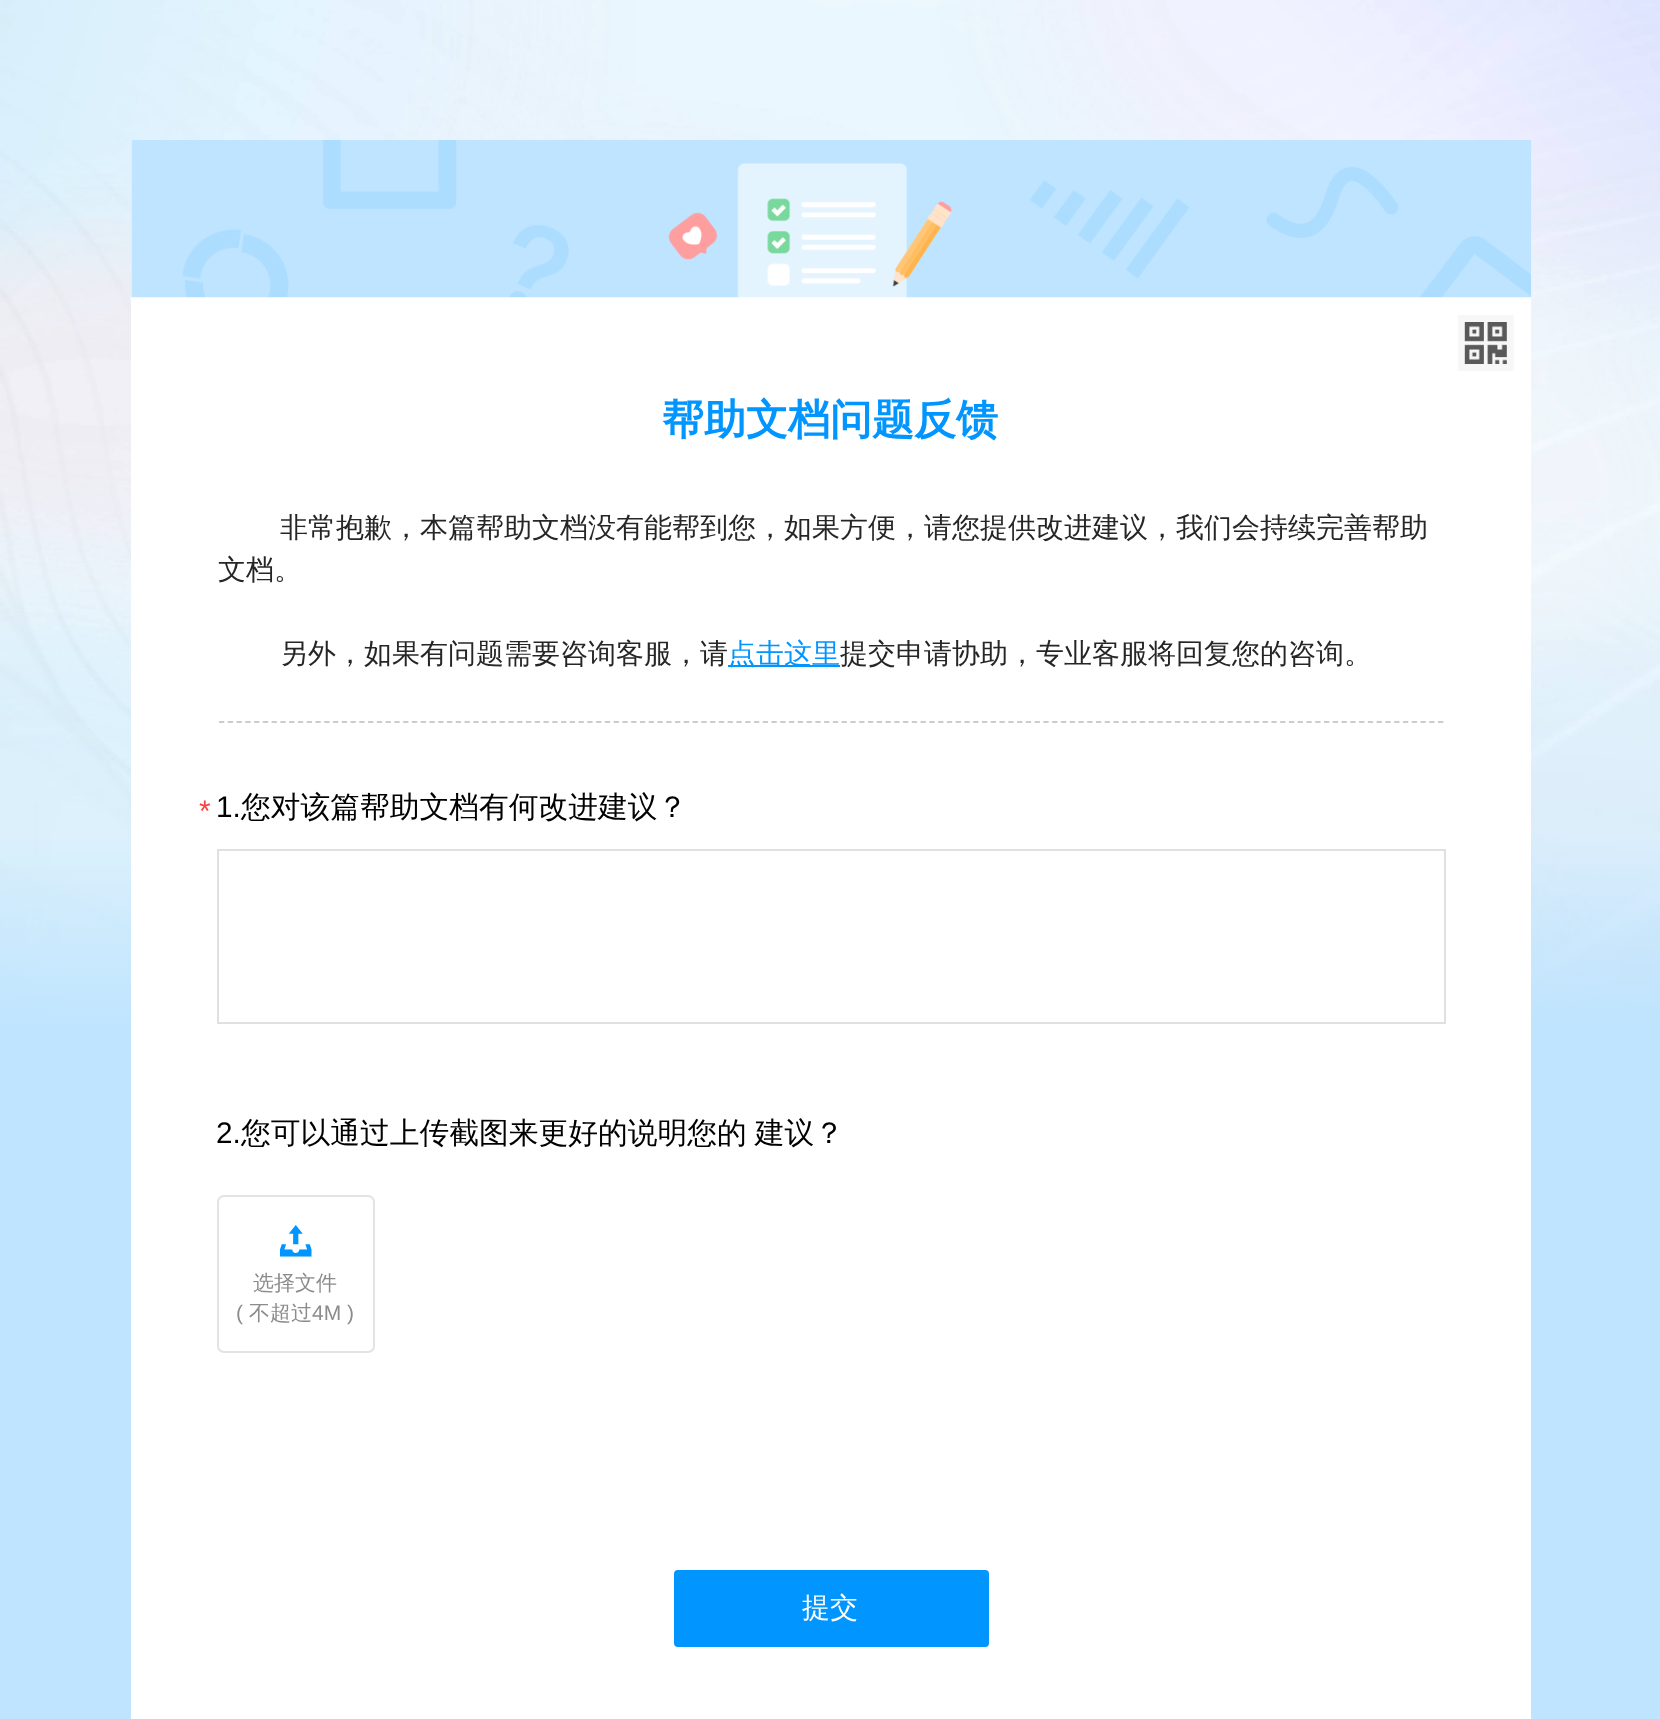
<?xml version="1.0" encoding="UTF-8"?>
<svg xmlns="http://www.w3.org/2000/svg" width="1660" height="1719">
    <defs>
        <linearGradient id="g1" gradientUnits="userSpaceOnUse" x1="830" y1="828" x2="830" y2="1038"><stop offset="0" stop-color="#BEE4FF" stop-opacity="0"/><stop offset="1" stop-color="#BEE4FF"/></linearGradient>
    </defs>
    <rect width="100%" height="100%" fill="#BEE4FF"/>
    <image x="0" y="0" width="1660" height="1037" href="img_01.png"/>
    <rect x="0" y="838" width="1660" height="199" fill="url(#g1)"/>
    <rect x="131" y="140" width="1400" height="1579" fill="#FFFFFF"/>
    <image x="131" y="140" width="1401" height="158" href="img_02.png"/>
    <image x="1458" y="315" width="56" height="56" href="img_03.png"/>
    <text x="662" y="434" font-family="WenQuanYi Zen Hei" font-size="42" font-weight="700" fill="#0095FF">帮助文档问题反馈</text>
    <path d="M 219 722 H 1444" fill="none" stroke="#CCCCCC" stroke-width="1.8" stroke-dasharray="5.25 3.52"/>
    <text x="280" y="537" font-family="WenQuanYi Zen Hei" font-size="28" font-weight="500" fill="#262626">非常抱歉，本篇帮助文档没有能帮到您，如果方便，请您提供改进建议，我们会持续完善帮助</text>
    <text x="218" y="579" font-family="WenQuanYi Zen Hei" font-size="28" font-weight="500" fill="#262626">文档。</text>
    <text x="280" y="663" font-family="WenQuanYi Zen Hei" font-size="28" font-weight="500" fill="#262626">另外，如果有问题需要咨询客服，请</text>
    <rect x="728" y="665" width="112" height="2" fill="#0095FF"/>
    <text x="728" y="663" font-family="WenQuanYi Zen Hei" font-size="28" font-weight="500" fill="#0095FF">点击这里</text>
    <text x="840" y="663" font-family="WenQuanYi Zen Hei" font-size="28" font-weight="500" fill="#262626">提交申请协助，专业客服将回复您的咨询。</text>
    <text x="199" y="821" font-family="Liberation Sans" font-size="29.75" fill="#FF4040">*</text>
    <text x="216" y="817" font-family="Liberation Sans" font-size="29.75" fill="#000000">1.</text>
    <text x="241" y="817" font-family="WenQuanYi Zen Hei" font-size="29.75" font-weight="500" fill="#000000">您对该篇帮助文档有何改进建议？</text>
    <rect x="218" y="850" width="1227" height="173" fill="none" stroke="#E0E0E0" stroke-width="2"/>
    <text x="216" y="1143" font-family="Liberation Sans" font-size="29.75" fill="#000000">2.</text>
    <text x="241" y="1143" word-spacing="-1" font-family="WenQuanYi Zen Hei" font-size="29.75" font-weight="500" fill="#000000">您可以通过上传截图来更好的说明您的 建议？</text>
    <rect x="218" y="1196" width="156" height="156" rx="6" fill="none" stroke="#E3E3E3" stroke-width="2"/>
    <image x="280" y="1225" width="32" height="32" href="img_04.png"/>
    <text x="253" y="1290" font-family="WenQuanYi Zen Hei" font-size="21" font-weight="500" fill="#8C8C8C">选择文件</text>
    <text x="236" y="1320" font-family="Liberation Sans" font-size="21" fill="#8C8C8C">(</text>
    <text x="249" y="1320" font-family="WenQuanYi Zen Hei" font-size="21" font-weight="500" fill="#8C8C8C">不超过</text>
    <text x="312" y="1320" font-family="Liberation Sans" font-size="21" fill="#8C8C8C">4M )</text>
    <rect x="674" y="1570" width="315" height="77" rx="4" fill="#0095FF"/>
    <text x="802" y="1617" font-family="WenQuanYi Zen Hei" font-size="28" font-weight="500" fill="#FFFFFF">提交</text>
</svg>
